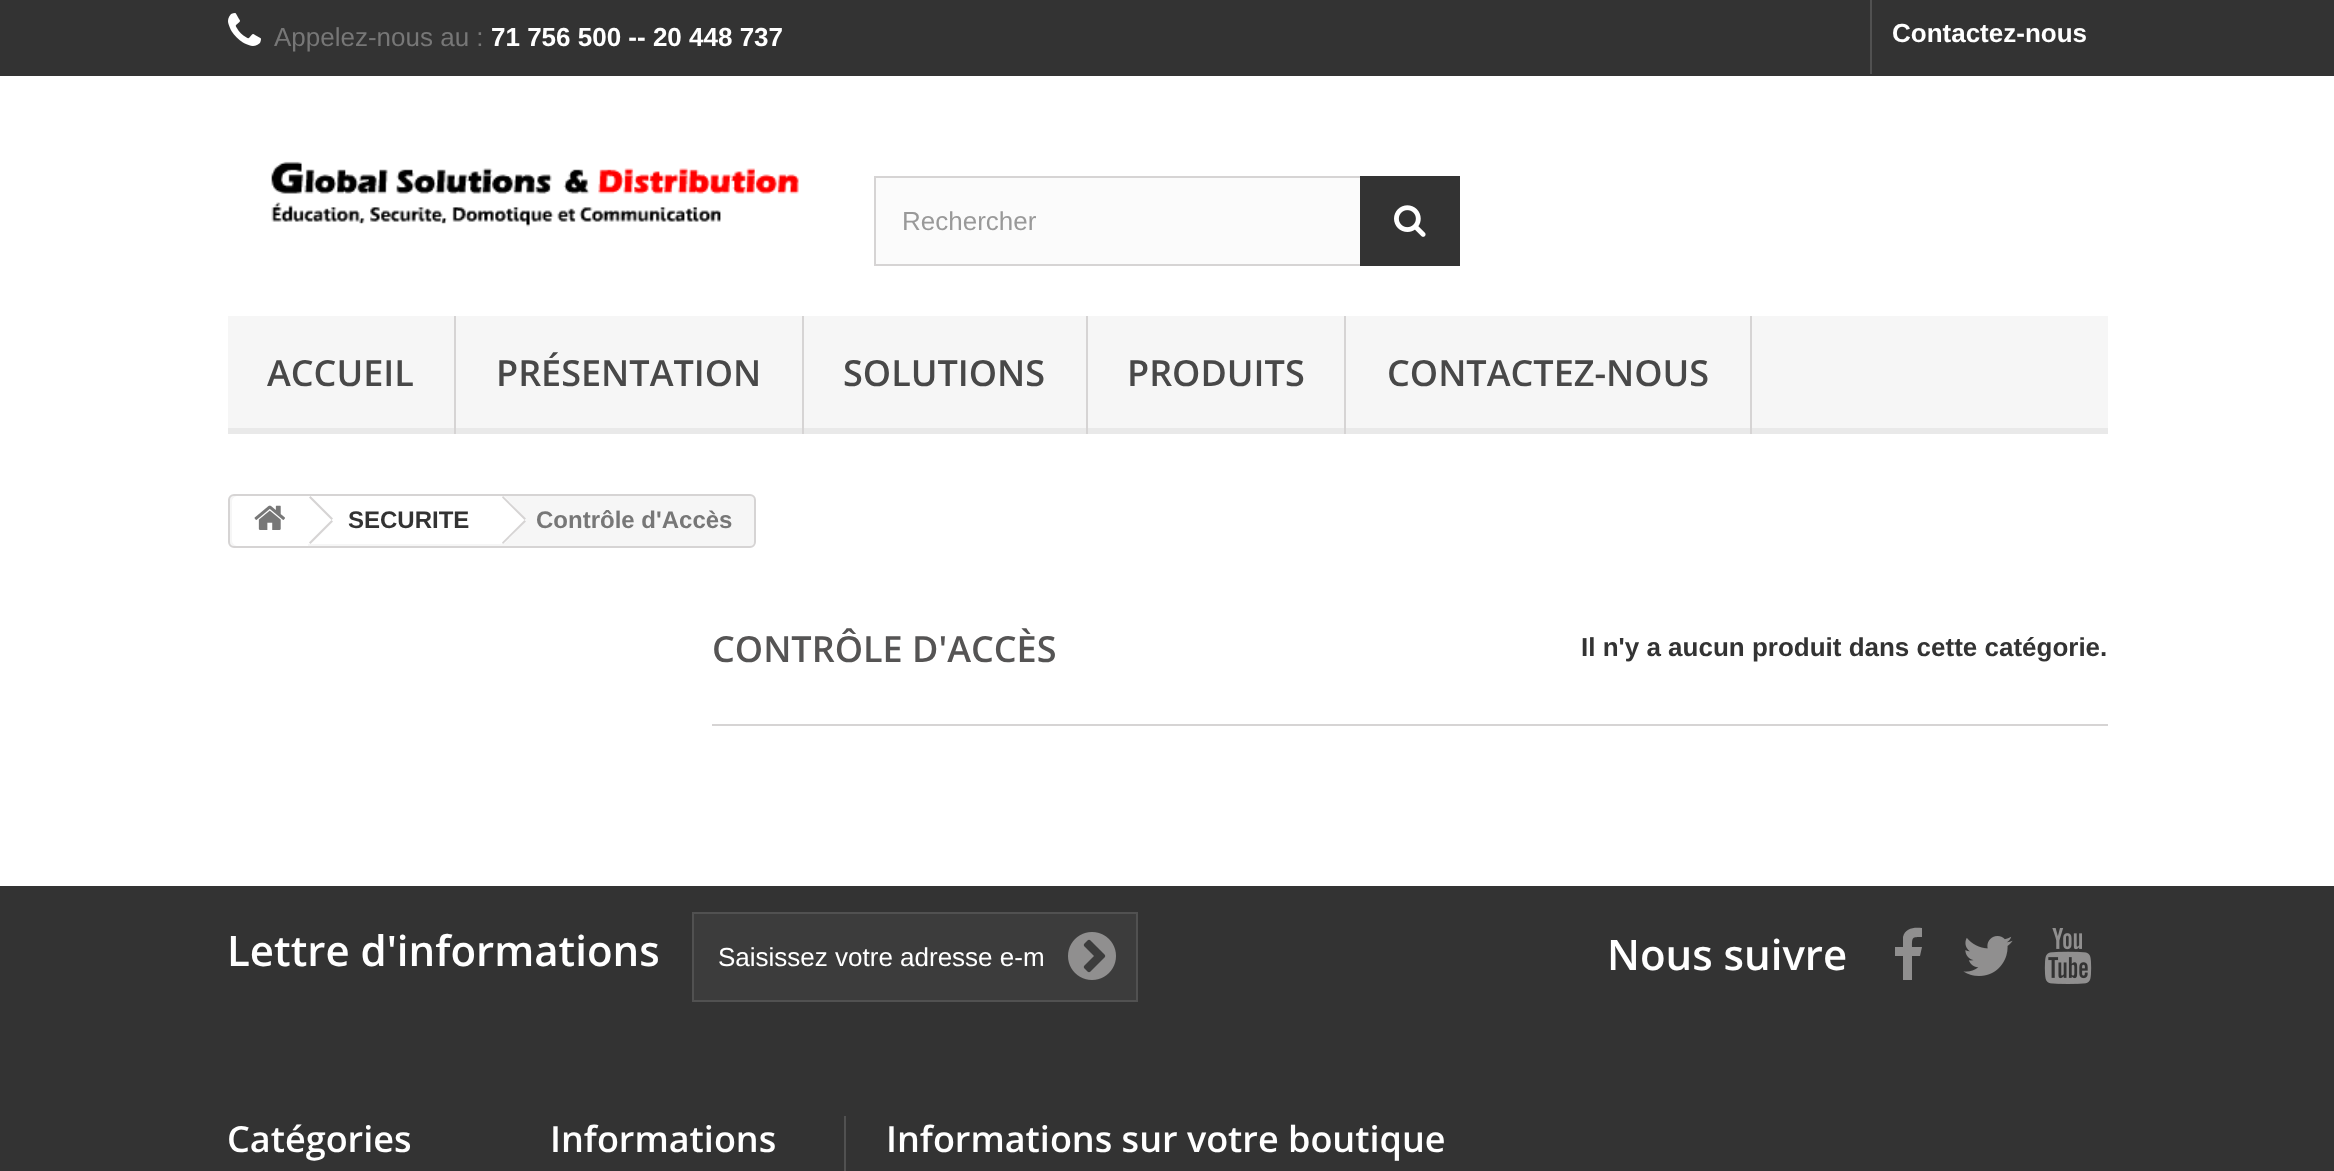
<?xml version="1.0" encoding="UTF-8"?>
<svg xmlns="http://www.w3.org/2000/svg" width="2334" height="1171">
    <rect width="100%" height="100%" fill="#FFFFFF"/>
    <rect x="0" y="0" width="2334" height="76" fill="#333333"/>
    <image x="228" y="13" width="33" height="33" href="img_01.png"/>
    <text x="274" y="46" font-family="Liberation Sans" font-size="26" fill="#777777">Appelez-nous au :</text>
    <text x="491" y="46" font-family="Liberation Sans" font-size="26" font-weight="700" fill="#FFFFFF">71 756 500 -- 20 448 737</text>
    <rect x="1870" y="0" width="2" height="74" fill="#515151"/>
    <text x="1892" y="42" font-family="Liberation Sans" font-size="26" font-weight="700" fill="#FFFFFF">Contactez-nous</text>
    <image x="271" y="161" width="528" height="66" href="img_02.png"/>
    <rect x="876" y="178" width="484" height="86" fill="#FBFBFB"/>
    <rect x="875" y="177" width="584" height="88" fill="none" stroke="#D6D4D4" stroke-width="2"/>
    <text x="902" y="230" font-family="Liberation Sans" font-size="26" fill="#999999">Rechercher</text>
    <rect x="1360" y="176" width="100" height="90" fill="#333333"/>
    <image x="1394" y="205" width="32" height="32" href="img_03.png"/>
    <rect x="228" y="316" width="1880" height="112" fill="#F6F6F6"/>
    <rect x="228" y="428" width="1880" height="6" fill="#E9E9E9"/>
    <rect x="454" y="316" width="2" height="118" fill="#D6D4D4"/>
    <text x="267" y="386" font-family="Open Sans" font-size="36" font-weight="600" fill="#484848">ACCUEIL</text>
    <rect x="802" y="316" width="2" height="118" fill="#D6D4D4"/>
    <text x="496" y="386" font-family="Open Sans" font-size="36" font-weight="600" fill="#484848">PRÉSENTATION</text>
    <rect x="1086" y="316" width="2" height="118" fill="#D6D4D4"/>
    <text x="843" y="386" font-family="Open Sans" font-size="36" font-weight="600" fill="#484848">SOLUTIONS</text>
    <rect x="1344" y="316" width="2" height="118" fill="#D6D4D4"/>
    <text x="1127" y="386" font-family="Open Sans" font-size="36" font-weight="600" fill="#484848">PRODUITS</text>
    <rect x="1750" y="316" width="2" height="118" fill="#D6D4D4"/>
    <text x="1387" y="386" font-family="Open Sans" font-size="36" font-weight="600" fill="#484848">CONTACTEZ-NOUS</text>
    <rect x="229" y="495" width="526" height="52" rx="5" fill="#F6F6F6" stroke="#D6D4D4" stroke-width="2"/>
    <path d="M 238 496 H 308 V 546 H 238 C 234.5 546 232 543.5 232 540 V 502 C 232 498.5 234.5 496 238 496 Z" fill="#FFFFFF"/>
    <image x="254" y="505" width="31" height="25" href="img_04.png"/>
    <rect x="308" y="496" width="192" height="48" fill="#FFFFFF"/>
    <path d="M 310.5 496 L 333 518.5 L 331.5 520 L 309 497.5 Z M 331.5 520 L 333 521.5 L 310.5 544 L 309 542.5 Z" fill="#D6D4D4"/>
    <text x="348" y="528" font-family="Liberation Sans" font-size="24" font-weight="700" fill="#333333">SECURITE</text>
    <path d="M 505 497 L 524 517 C 526 519 526 521 524 523 L 505 543 C 503 544 500 544 499 543 L 479 523 C 478 521 478 519 479 517 L 499 497 C 500 496 503 496 505 497 Z" fill="#FFFFFF"/>
    <path d="M 503 496 L 526 518.5 L 524.5 520 L 502 497.5 Z M 524.5 520 L 526 521.5 L 503 544 L 502 542.5 Z" fill="#D6D4D4"/>
    <text x="536" y="528" font-family="Liberation Sans" font-size="24" font-weight="700" fill="#777777">Contrôle d'Accès</text>
    <rect x="712" y="724" width="1396" height="2" fill="#D6D4D4"/>
    <text x="712" y="662" font-family="Open Sans" font-size="36" font-weight="600" fill="#555454">CONTRÔLE D'ACCÈS</text>
    <text x="1581" y="656" font-family="Liberation Sans" font-size="26" font-weight="700" fill="#333333">Il n'y a aucun produit dans cette catégorie.</text>
    <rect x="0" y="886" width="2334" height="285" fill="#333333"/>
    <text x="227" y="966" font-family="Open Sans" font-size="42" font-weight="600" fill="#FFFFFF">Lettre d'informations</text>
    <rect x="693" y="913" width="444" height="88" fill="#3C3C3C" stroke="#515151" stroke-width="2"/>
    <text x="718" y="966" font-family="Liberation Sans" font-size="26" fill="#FFFFFF">Saisissez votre adresse e-m</text>
    <image x="1068" y="932" width="48" height="48" href="img_05.png"/>
    <text x="1607" y="970" font-family="Open Sans" font-size="42" font-weight="600" fill="#FFFFFF">Nous suivre</text>
    <path d="M 1922 928 V 937 C 1912 937 1912 937 1912 947 H 1922 L 1920 956 H 1912 V 980 H 1903 V 956 H 1895 V 947 H 1903 V 937 C 1905 928 1914 927 1922 928 Z" fill="#908F8F"/>
    <image x="1963" y="936" width="50" height="40" href="img_06.png"/>
    <image x="2044" y="928" width="48" height="56" href="img_07.png"/>
    <text x="227" y="1152" font-family="Open Sans" font-size="36" font-weight="600" fill="#FFFFFF">Catégories</text>
    <text x="550" y="1152" font-family="Open Sans" font-size="36" font-weight="600" fill="#FFFFFF">Informations</text>
    <rect x="844" y="1116" width="2" height="55" fill="#515151"/>
    <text x="886" y="1152" font-family="Open Sans" font-size="36" font-weight="600" fill="#FFFFFF">Informations sur votre boutique</text>
</svg>
